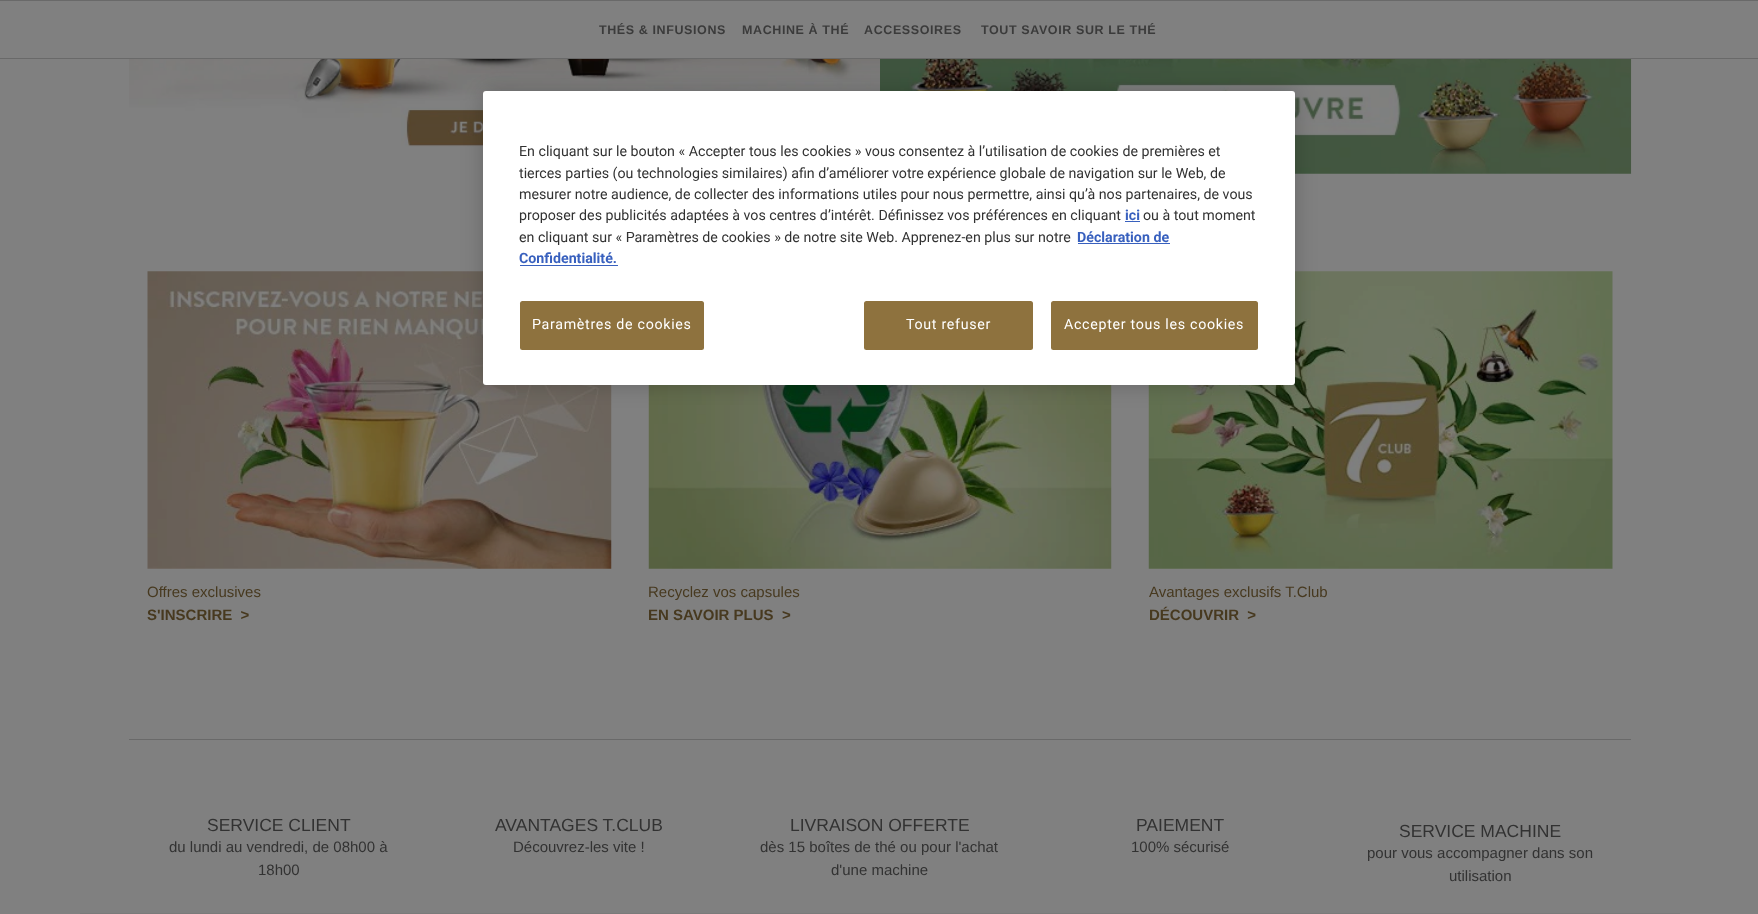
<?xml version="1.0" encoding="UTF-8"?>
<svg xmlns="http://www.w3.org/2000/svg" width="1758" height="914">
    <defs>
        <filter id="blur1" x="-50%" y="-200%" width="200%" height="500%"><feGaussianBlur stdDeviation="11"/></filter>
    </defs>
    <rect width="100%" height="100%" fill="#808080"/>
    <rect x="0" y="0" width="1758" height="1" fill="#696969"/>
    <rect x="0" y="58" width="1758" height="1" fill="#696969"/>
    <text x="599" y="34" font-family="Liberation Sans" font-size="12.5" font-weight="700" letter-spacing="0.6" fill="#3B3B3B">THÉS &amp; INFUSIONS</text>
    <text x="742" y="34" font-family="Liberation Sans" font-size="12.5" font-weight="700" letter-spacing="0.6" fill="#3B3B3B">MACHINE À THÉ</text>
    <text x="864" y="34" font-family="Liberation Sans" font-size="12.5" font-weight="700" letter-spacing="0.6" fill="#3B3B3B">ACCESSOIRES</text>
    <text x="981" y="34" font-family="Liberation Sans" font-size="12.5" font-weight="700" letter-spacing="0.6" fill="#3B3B3B">TOUT SAVOIR SUR LE THÉ</text>
    <image x="129" y="59" width="751" height="88" href="img_01.png"/>
    <image x="880" y="59" width="752" height="115" href="img_02.png"/>
    <image x="147" y="271" width="465" height="298" href="img_03.png"/>
    <text x="147" y="597" font-family="Liberation Sans" font-size="15" fill="#47391F">Offres exclusives</text>
    <text x="147" y="620" font-family="Liberation Sans" font-size="15" font-weight="700" fill="#47391F" xml:space="preserve">S'INSCRIRE  &gt;</text>
    <image x="648" y="385" width="464" height="184" href="img_04.png"/>
    <text x="648" y="597" font-family="Liberation Sans" font-size="15" fill="#47391F">Recyclez vos capsules</text>
    <text x="648" y="620" font-family="Liberation Sans" font-size="15" font-weight="700" fill="#47391F" xml:space="preserve">EN SAVOIR PLUS  &gt;</text>
    <image x="1148" y="271" width="465" height="298" href="img_05.png"/>
    <text x="1149" y="597" font-family="Liberation Sans" font-size="15" fill="#47391F">Avantages exclusifs T.Club</text>
    <text x="1149" y="620" font-family="Liberation Sans" font-size="15" font-weight="700" fill="#47391F" xml:space="preserve">DÉCOUVRIR  &gt;</text>
    <rect x="129" y="739" width="1502" height="1" fill="#696969"/>
    <text x="207" y="831" font-family="Liberation Sans" font-size="17.5" fill="#323232">SERVICE CLIENT</text>
    <text x="169" y="852" font-family="Liberation Sans" font-size="15" fill="#323232">du lundi au vendredi, de 08h00 à</text>
    <text x="258" y="875" font-family="Liberation Sans" font-size="15" fill="#323232">18h00</text>
    <text x="495" y="831" font-family="Liberation Sans" font-size="17.5" fill="#323232">AVANTAGES T.CLUB</text>
    <text x="513" y="852" font-family="Liberation Sans" font-size="15" fill="#323232">Découvrez-les vite !</text>
    <text x="790" y="831" font-family="Liberation Sans" font-size="17.5" fill="#323232">LIVRAISON OFFERTE</text>
    <text x="760" y="852" font-family="Liberation Sans" font-size="15" fill="#323232">dès 15 boîtes de thé ou pour l'achat</text>
    <text x="831" y="875" font-family="Liberation Sans" font-size="15" fill="#323232">d'une machine</text>
    <text x="1136" y="831" font-family="Liberation Sans" font-size="17.5" fill="#323232">PAIEMENT</text>
    <text x="1131" y="852" font-family="Liberation Sans" font-size="15" fill="#323232">100% sécurisé</text>
    <text x="1399" y="837" font-family="Liberation Sans" font-size="17.5" fill="#323232">SERVICE MACHINE</text>
    <text x="1367" y="858" font-family="Liberation Sans" font-size="15" fill="#323232">pour vous accompagner dans son</text>
    <text x="1449" y="881" font-family="Liberation Sans" font-size="15" fill="#323232">utilisation</text>
    <rect x="80" y="913" width="1600" height="1" fill="#7A7A7A"/>
    <rect x="483" y="91" width="812" height="294" rx="3" fill="#000000" fill-opacity="0.2" filter="url(#blur1)"/>
    <rect x="483" y="91" width="812" height="294" rx="3" fill="#FFFFFF"/>
    <text font-family="Roboto" font-size="14.23" fill="#323232">
        <tspan x="519" y="156">En cliquant sur le bouton « Accepter tous les cookies » vous consentez à l’utilisation de cookies de premières et</tspan>
        <tspan x="519" y="178">tierces parties (ou technologies similaires) afin d’améliorer votre expérience globale de navigation sur le Web, de</tspan>
        <tspan x="519" y="199">mesurer notre audience, de collecter des informations utiles pour nous permettre, ainsi qu’à nos partenaires, de vous</tspan>
        <tspan x="519" y="220">proposer des publicités adaptées à vos centres d’intérêt. Définissez vos préférences en cliquant</tspan>
    </text>
    <text x="1125" y="220" font-family="Roboto" font-size="14.23" font-weight="700" fill="#3860BE">ici</text>
    <rect x="1125" y="221" width="15" height="1" fill="#3860BE"/>
    <text x="1143" y="220" font-family="Roboto" font-size="14.23" fill="#323232">ou à tout moment</text>
    <text x="519" y="242" font-family="Roboto" font-size="14.23" fill="#323232">en cliquant sur « Paramètres de cookies » de notre site Web. Apprenez-en plus sur notre</text>
    <text x="1077" y="242" font-family="Roboto" font-size="14.23" font-weight="700" fill="#3860BE">Déclaration de</text>
    <rect x="1078" y="243" width="92" height="1" fill="#3860BE"/>
    <text x="519" y="263" font-family="Roboto" font-size="14.23" font-weight="700" fill="#3860BE">Confidentialité.</text>
    <rect x="520" y="265" width="98" height="1" fill="#3860BE"/>
    <rect x="520" y="301" width="184" height="49" rx="2.5" fill="#8E723E"/>
    <text x="532" y="329" font-family="Roboto" font-size="14.23" letter-spacing="0.7" fill="#FFFFFF">Paramètres de cookies</text>
    <rect x="864" y="301" width="169" height="49" rx="2.5" fill="#8E723E"/>
    <text x="906" y="329" font-family="Roboto" font-size="14.23" letter-spacing="0.7" fill="#FFFFFF">Tout refuser</text>
    <rect x="1051" y="301" width="207" height="49" rx="2.5" fill="#8E723E"/>
    <text x="1064" y="329" font-family="Roboto" font-size="14.23" letter-spacing="0.7" fill="#FFFFFF">Accepter tous les cookies</text>
</svg>
